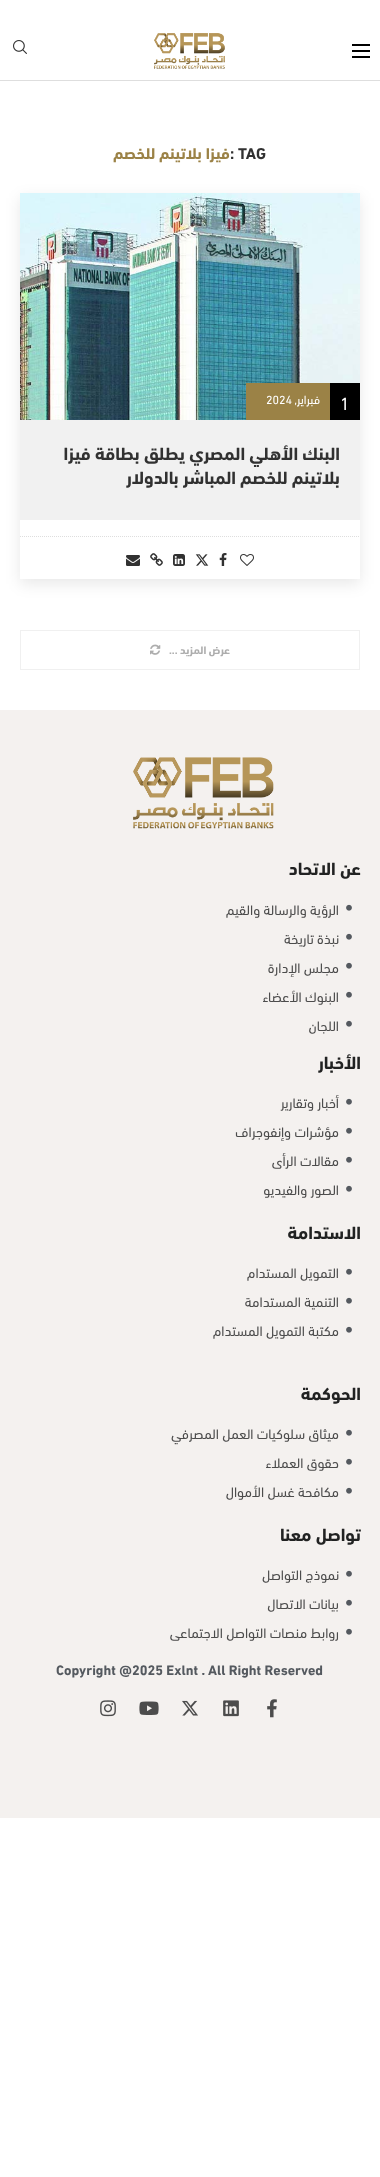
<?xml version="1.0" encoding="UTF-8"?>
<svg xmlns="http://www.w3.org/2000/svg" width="380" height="2177">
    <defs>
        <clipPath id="clip1"><path d="M 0 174 H 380 V 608 H 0 Z M 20 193 H 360 V 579 H 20 Z" clip-rule="evenodd"/></clipPath>
        <filter id="blur1" x="-50%" y="-200%" width="200%" height="500%"><feGaussianBlur stdDeviation="7.5"/></filter>
    </defs>
    <rect width="100%" height="100%" fill="#FFFFFF"/>
    <rect x="0" y="80" width="380" height="1" fill="#DEDEDE"/>
    <rect x="352" y="44" width="18" height="2" fill="#000000"/>
    <rect x="352" y="50" width="18" height="2" fill="#000000"/>
    <rect x="352" y="56" width="18" height="2" fill="#000000"/>
    <image x="154" y="33" width="71" height="36" href="img_01.png"/>
    <image x="13" y="40" width="14" height="14" href="img_02.png"/>
    <text x="230" y="159" font-family="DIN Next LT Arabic" font-size="16" font-weight="700" fill="#313131">: TAG</text>
    <text x="230" y="159" font-family="DIN Next LT Arabic" font-size="16" font-weight="700" direction="rtl" fill="#9B8246">فيزا بلاتينم للخصم</text>
    <g clip-path="url(#clip1)">
        <rect x="20" y="198" width="340" height="386" fill="#000000" fill-opacity="0.09" filter="url(#blur1)"/>
    </g>
    <image x="20" y="193" width="340" height="227" href="img_03.png"/>
    <rect x="246" y="383" width="84" height="37" fill="#9B8246"/>
    <rect x="330" y="383" width="30" height="37" fill="#000000"/>
    <text x="340" y="410" font-family="DIN Next LT Arabic" font-size="18" fill="#FFFFFF">1</text>
    <text x="320" y="404" font-family="DIN Next LT Arabic" font-size="12" direction="rtl" fill="#FFFFFF">فبراير,</text>
    <text x="266" y="404" font-family="DIN Next LT Arabic" font-size="12" fill="#FFFFFF">2024</text>
    <rect x="20" y="420" width="340" height="100" fill="#F1F1F1"/>
    <text font-family="DIN Next LT Arabic" font-size="18" font-weight="700" direction="rtl" fill="#313131">
        <tspan x="340" y="460">البنك الأهلي المصري يطلق بطاقة فيزا</tspan>
        <tspan x="340" y="484">بلاتينم للخصم المباشر بالدولار</tspan>
    </text>
    <path d="M 20 536.5 H 360" fill="none" stroke="#DEDEDE" stroke-dasharray="1 1"/>
    <image x="240" y="554" width="14" height="12" href="img_04.png"/>
    <image x="219" y="553" width="8" height="13" href="img_05.png"/>
    <image x="195" y="554" width="14" height="12" href="img_06.png"/>
    <image x="173" y="554" width="12" height="12" href="img_07.png"/>
    <image x="150" y="553" width="13" height="13" href="img_08.png"/>
    <image x="126" y="555" width="14" height="11" href="img_09.png"/>
    <rect x="20.5" y="630.5" width="339" height="39" fill="none" stroke="#F0F0F0"/>
    <text x="230" y="654" font-family="DIN Next LT Arabic" font-size="11" font-weight="700" direction="rtl" fill="#ADADAD">عرض المزيد</text>
    <text x="169" y="654" font-family="DIN Next LT Arabic" font-size="11" font-weight="700" fill="#ADADAD">...</text>
    <image x="150" y="644" width="11" height="11" href="img_10.png"/>
    <rect x="0" y="710" width="380" height="1108" fill="#F4F1EF"/>
    <image x="133" y="757" width="141" height="72" href="img_11.png"/>
    <text x="361" y="875" font-family="DIN Next LT Arabic" font-size="18" font-weight="700" direction="rtl" fill="#212222">عن الاتحاد</text>
    <image x="346" y="904" width="6" height="7" href="img_12.png"/>
    <text x="339" y="915" font-family="DIN Next LT Arabic" font-size="14" direction="rtl" fill="#4C4C4C">الرؤية والرسالة والقيم</text>
    <image x="346" y="933" width="6" height="7" href="img_12.png"/>
    <text x="339" y="944" font-family="DIN Next LT Arabic" font-size="14" direction="rtl" fill="#4C4C4C">نبذة تاريخة</text>
    <image x="346" y="962" width="6" height="7" href="img_12.png"/>
    <text x="339" y="973" font-family="DIN Next LT Arabic" font-size="14" direction="rtl" fill="#4C4C4C">مجلس الإدارة</text>
    <image x="346" y="991" width="6" height="7" href="img_12.png"/>
    <text x="339" y="1002" font-family="DIN Next LT Arabic" font-size="14" direction="rtl" fill="#4C4C4C">البنوك الأعضاء</text>
    <image x="346" y="1020" width="6" height="7" href="img_12.png"/>
    <text x="339" y="1031" font-family="DIN Next LT Arabic" font-size="14" direction="rtl" fill="#4C4C4C">اللجان</text>
    <text x="361" y="1069" font-family="DIN Next LT Arabic" font-size="18" font-weight="700" direction="rtl" fill="#212222">الأخبار</text>
    <image x="346" y="1098" width="6" height="7" href="img_12.png"/>
    <text x="339" y="1108" font-family="DIN Next LT Arabic" font-size="14" direction="rtl" fill="#4C4C4C">أخبار وتقارير</text>
    <image x="346" y="1127" width="6" height="7" href="img_12.png"/>
    <text x="339" y="1137" font-family="DIN Next LT Arabic" font-size="14" direction="rtl" fill="#4C4C4C">مؤشرات وإنفوجراف</text>
    <image x="346" y="1156" width="6" height="7" href="img_12.png"/>
    <text x="339" y="1166" font-family="DIN Next LT Arabic" font-size="14" direction="rtl" fill="#4C4C4C">مقالات الرأى</text>
    <image x="346" y="1185" width="6" height="7" href="img_12.png"/>
    <text x="339" y="1195" font-family="DIN Next LT Arabic" font-size="14" direction="rtl" fill="#4C4C4C">الصور والفيديو</text>
    <text x="361" y="1239" font-family="DIN Next LT Arabic" font-size="18" font-weight="700" direction="rtl" fill="#212222">الاستدامة</text>
    <image x="346" y="1268" width="6" height="7" href="img_12.png"/>
    <text x="339" y="1278" font-family="DIN Next LT Arabic" font-size="14" direction="rtl" fill="#4C4C4C">التمويل المستدام</text>
    <image x="346" y="1297" width="6" height="7" href="img_12.png"/>
    <text x="339" y="1307" font-family="DIN Next LT Arabic" font-size="14" direction="rtl" fill="#4C4C4C">التنمية المستدامة</text>
    <image x="346" y="1326" width="6" height="7" href="img_12.png"/>
    <text x="339" y="1336" font-family="DIN Next LT Arabic" font-size="14" direction="rtl" fill="#4C4C4C">مكتبة التمويل المستدام</text>
    <text x="361" y="1400" font-family="DIN Next LT Arabic" font-size="18" font-weight="700" direction="rtl" fill="#212222">الحوكمة</text>
    <image x="346" y="1429" width="6" height="7" href="img_12.png"/>
    <text x="339" y="1439" font-family="DIN Next LT Arabic" font-size="14" direction="rtl" fill="#4C4C4C">ميثاق سلوكيات العمل المصرفي</text>
    <image x="346" y="1458" width="6" height="7" href="img_12.png"/>
    <text x="339" y="1468" font-family="DIN Next LT Arabic" font-size="14" direction="rtl" fill="#4C4C4C">حقوق العملاء</text>
    <image x="346" y="1487" width="6" height="7" href="img_12.png"/>
    <text x="339" y="1497" font-family="DIN Next LT Arabic" font-size="14" direction="rtl" fill="#4C4C4C">مكافحة غسل الأموال</text>
    <text x="361" y="1541" font-family="DIN Next LT Arabic" font-size="18" font-weight="700" direction="rtl" fill="#212222">تواصل معنا</text>
    <image x="346" y="1570" width="6" height="7" href="img_12.png"/>
    <text x="339" y="1580" font-family="DIN Next LT Arabic" font-size="14" direction="rtl" fill="#4C4C4C">نموذج التواصل</text>
    <image x="346" y="1599" width="6" height="7" href="img_12.png"/>
    <text x="339" y="1609" font-family="DIN Next LT Arabic" font-size="14" direction="rtl" fill="#4C4C4C">بيانات الاتصال</text>
    <image x="346" y="1628" width="6" height="7" href="img_12.png"/>
    <text x="339" y="1638" font-family="DIN Next LT Arabic" font-size="14" direction="rtl" fill="#4C4C4C">روابط منصات التواصل الاجتماعى</text>
    <text x="56" y="1675" font-family="DIN Next LT Arabic" font-size="14" font-weight="700" fill="#54595F">Copyright @2025 Exlnt . All Right Reserved</text>
    <image x="267" y="1699" width="10" height="19" href="img_13.png"/>
    <image x="223" y="1700" width="16" height="17" href="img_14.png"/>
    <image x="182" y="1700" width="16" height="16" href="img_15.png"/>
    <image x="139" y="1701" width="20" height="14" href="img_16.png"/>
    <image x="100" y="1700" width="16" height="17" href="img_17.png"/>
</svg>
